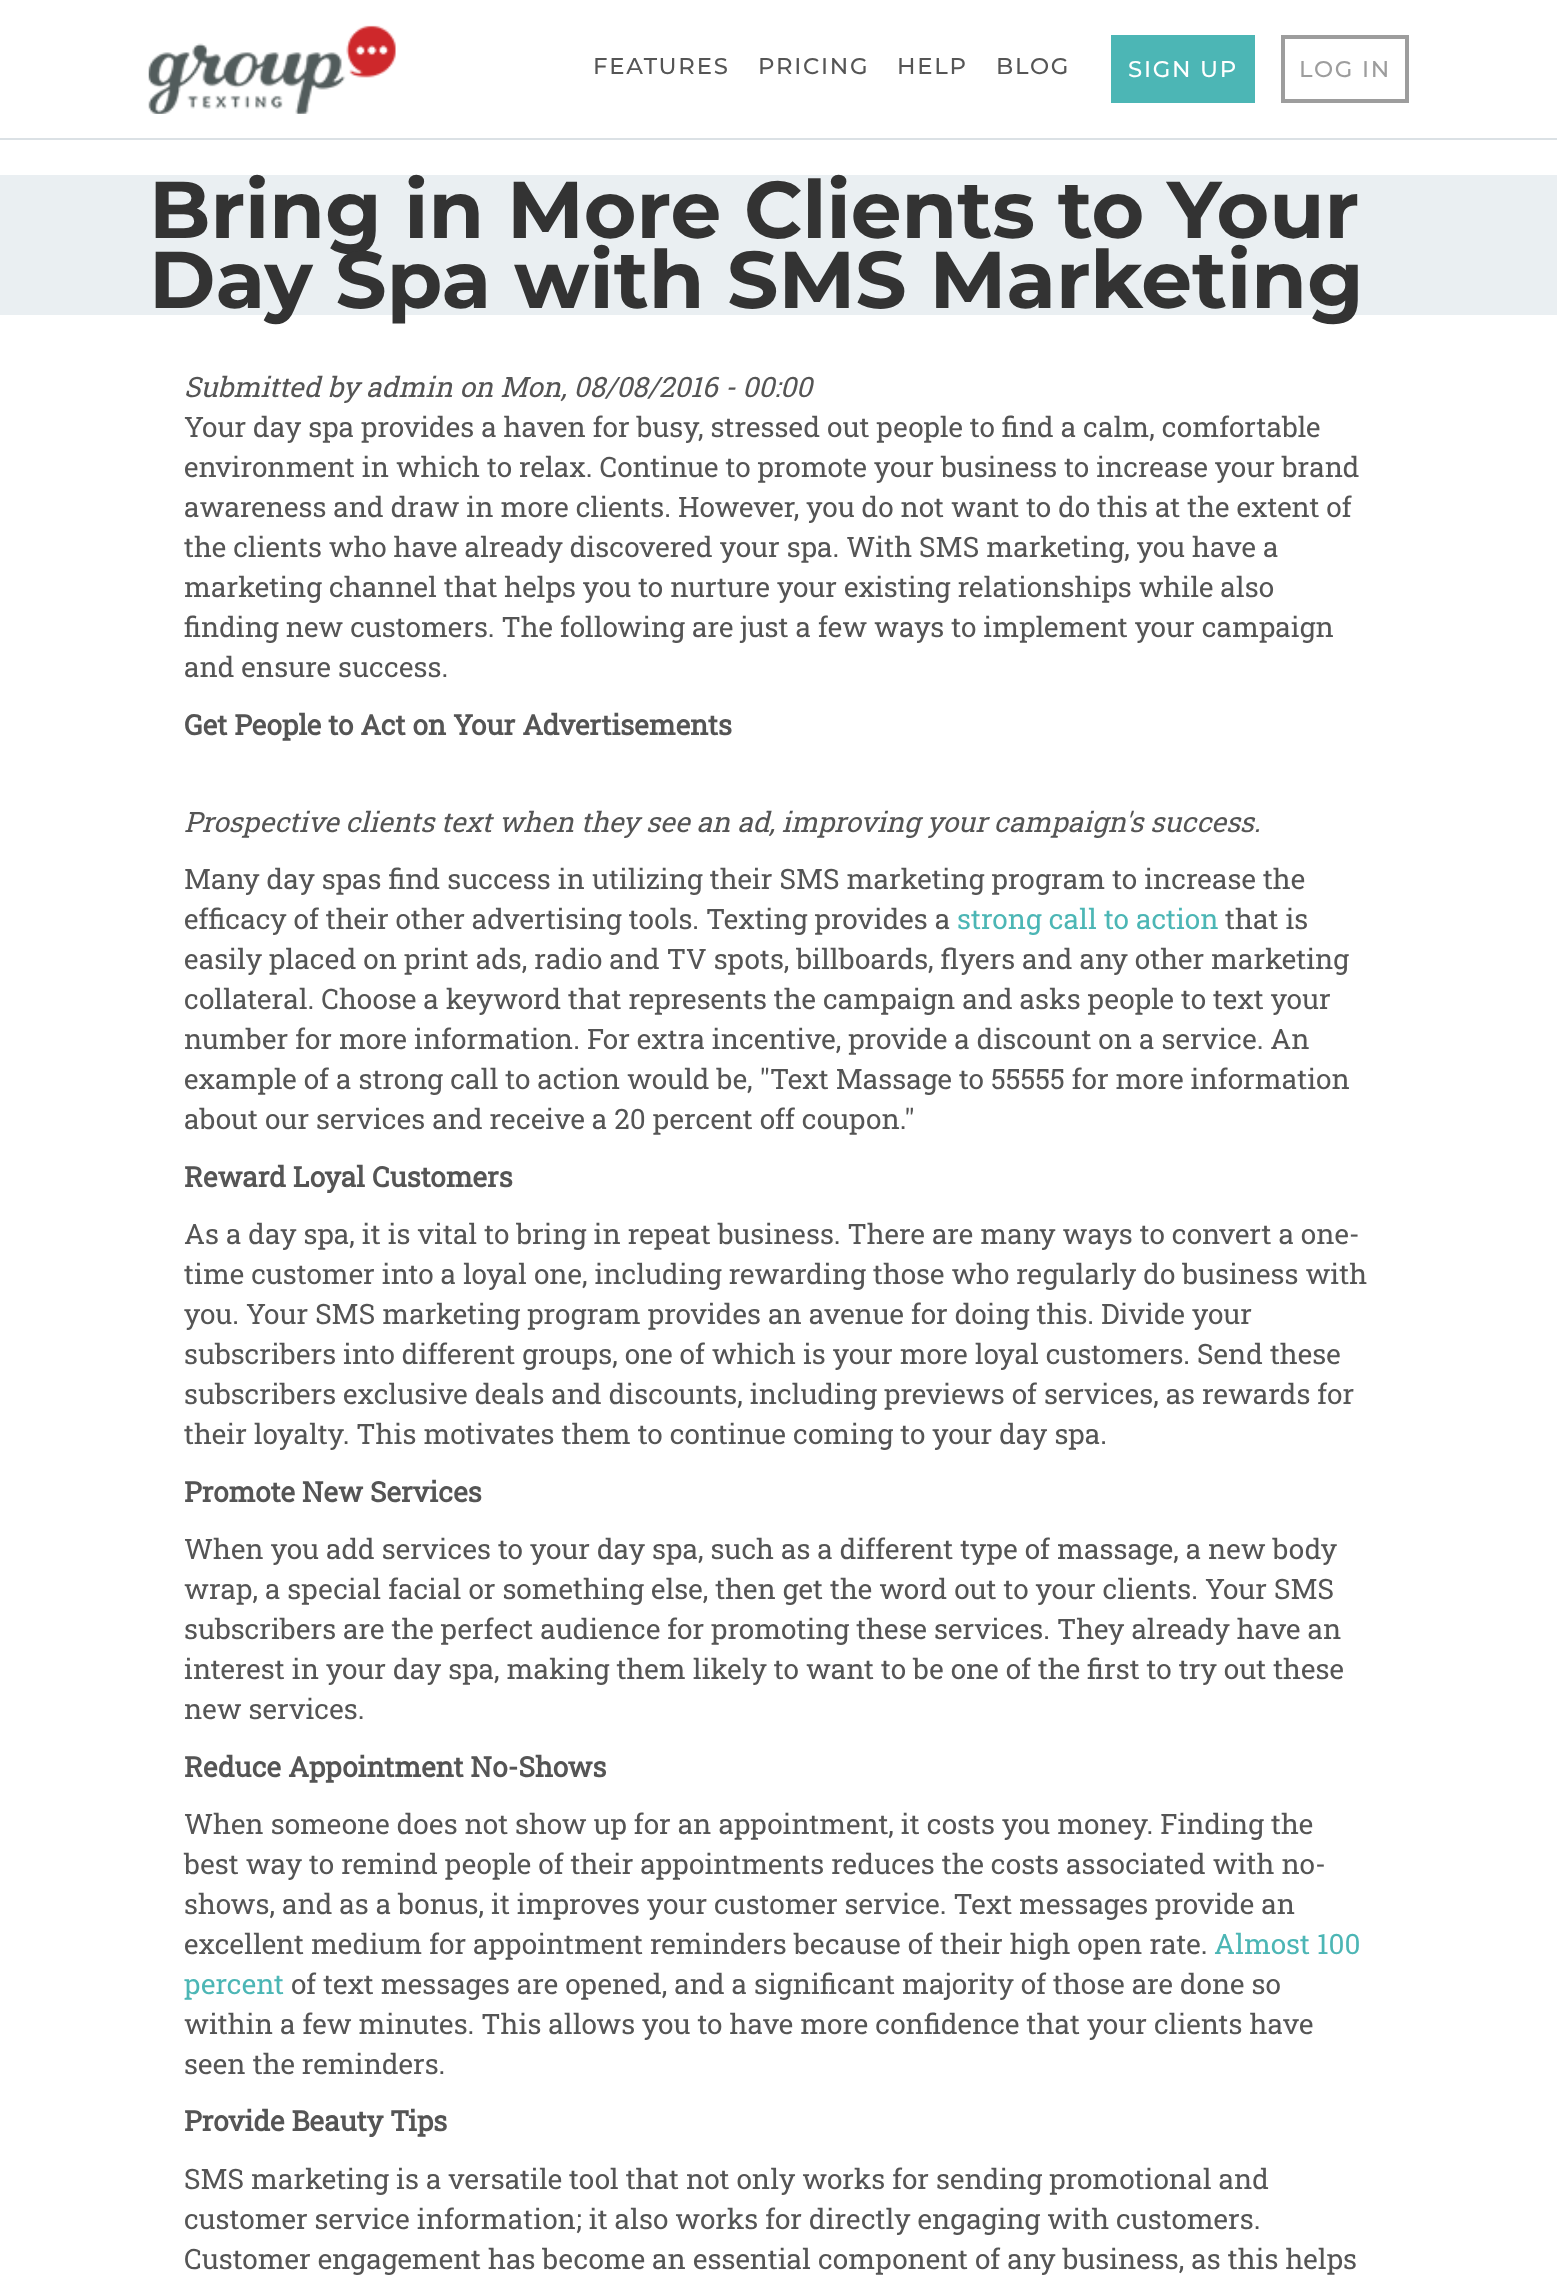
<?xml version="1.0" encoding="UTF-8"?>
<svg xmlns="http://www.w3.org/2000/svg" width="1557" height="2280">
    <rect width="100%" height="100%" fill="#FFFFFF"/>
    <rect x="0" y="138" width="1557" height="2" fill="#DBE1E5"/>
    <image x="148" y="25" width="248" height="89" href="img_01.png"/>
    <text x="593" y="74" font-family="Montserrat" font-size="22.75" font-weight="500" letter-spacing="1.75" fill="#555555">FEATURES</text>
    <text x="758" y="74" font-family="Montserrat" font-size="22.75" font-weight="500" letter-spacing="1.75" fill="#555555">PRICING</text>
    <text x="897" y="74" font-family="Montserrat" font-size="22.75" font-weight="500" letter-spacing="1.75" fill="#555555">HELP</text>
    <text x="996" y="74" font-family="Montserrat" font-size="22.75" font-weight="500" letter-spacing="1.75" fill="#555555">BLOG</text>
    <rect x="1111" y="35" width="144" height="68" fill="#4CB6B5"/>
    <text x="1128" y="77" font-family="Montserrat" font-size="22.75" font-weight="500" letter-spacing="1.75" fill="#FFFFFF">SIGN UP</text>
    <rect x="1283" y="37" width="124" height="64" fill="none" stroke="#9D9D9D" stroke-width="4"/>
    <text x="1299" y="77" font-family="Montserrat" font-size="22.75" font-weight="500" letter-spacing="1.75" fill="#9D9D9D">LOG IN</text>
    <rect x="0" y="175" width="1557" height="140" fill="#EAEFF2"/>
    <text font-family="Montserrat" font-size="80.5" font-weight="700" fill="#333333">
        <tspan x="149" y="238">Bring in More Clients to Your</tspan>
        <tspan x="149" y="308">Day Spa with SMS Marketing</tspan>
    </text>
    <text x="184" y="397" font-family="Roboto Slab" font-size="28" font-style="italic" fill="#555555">Submitted by admin on Mon, 08/08/2016 - 00:00</text>
    <text font-family="Roboto Slab" font-size="28" fill="#555555">
        <tspan x="184" y="437">Your day spa provides a haven for busy, stressed out people to find a calm, comfortable</tspan>
        <tspan x="184" y="477">environment in which to relax. Continue to promote your business to increase your brand</tspan>
        <tspan x="184" y="517">awareness and draw in more clients. However, you do not want to do this at the extent of</tspan>
        <tspan x="184" y="557">the clients who have already discovered your spa. With SMS marketing, you have a</tspan>
        <tspan x="184" y="597">marketing channel that helps you to nurture your existing relationships while also</tspan>
        <tspan x="184" y="637">finding new customers. The following are just a few ways to implement your campaign</tspan>
        <tspan x="184" y="677">and ensure success.</tspan>
    </text>
    <text x="184" y="735" font-family="Roboto Slab" font-size="28" font-weight="700" fill="#555555">Get People to Act on Your Advertisements</text>
    <text x="184" y="832" font-family="Roboto Slab" font-size="28" font-style="italic" fill="#555555">Prospective clients text when they see an ad, improving your campaign's success.</text>
    <text font-family="Roboto Slab" font-size="28" fill="#555555">
        <tspan x="184" y="889">Many day spas find success in utilizing their SMS marketing program to increase the</tspan>
        <tspan x="184" y="929">efficacy of their other advertising tools. Texting provides a</tspan>
    </text>
    <text x="957" y="929" font-family="Roboto Slab" font-size="28" fill="#4CB6B5">strong call to action</text>
    <text x="1225" y="929" font-family="Roboto Slab" font-size="28" fill="#555555">that is</text>
    <text font-family="Roboto Slab" font-size="28" fill="#555555">
        <tspan x="184" y="969">easily placed on print ads, radio and TV spots, billboards, flyers and any other marketing</tspan>
        <tspan x="184" y="1009">collateral. Choose a keyword that represents the campaign and asks people to text your</tspan>
        <tspan x="184" y="1049">number for more information. For extra incentive, provide a discount on a service. An</tspan>
        <tspan x="184" y="1089">example of a strong call to action would be, "Text Massage to 55555 for more information</tspan>
        <tspan x="184" y="1129">about our services and receive a 20 percent off coupon."</tspan>
    </text>
    <text x="184" y="1187" font-family="Roboto Slab" font-size="28" font-weight="700" fill="#555555">Reward Loyal Customers</text>
    <text font-family="Roboto Slab" font-size="28" fill="#555555">
        <tspan x="184" y="1244">As a day spa, it is vital to bring in repeat business. There are many ways to convert a one-</tspan>
        <tspan x="184" y="1284">time customer into a loyal one, including rewarding those who regularly do business with</tspan>
        <tspan x="184" y="1324">you. Your SMS marketing program provides an avenue for doing this. Divide your</tspan>
        <tspan x="184" y="1364">subscribers into different groups, one of which is your more loyal customers. Send these</tspan>
        <tspan x="184" y="1404">subscribers exclusive deals and discounts, including previews of services, as rewards for</tspan>
        <tspan x="184" y="1444">their loyalty. This motivates them to continue coming to your day spa.</tspan>
    </text>
    <text x="184" y="1502" font-family="Roboto Slab" font-size="28" font-weight="700" fill="#555555">Promote New Services</text>
    <text font-family="Roboto Slab" font-size="28" fill="#555555">
        <tspan x="184" y="1559">When you add services to your day spa, such as a different type of massage, a new body</tspan>
        <tspan x="184" y="1599">wrap, a special facial or something else, then get the word out to your clients. Your SMS</tspan>
        <tspan x="184" y="1639">subscribers are the perfect audience for promoting these services. They already have an</tspan>
        <tspan x="184" y="1679">interest in your day spa, making them likely to want to be one of the first to try out these</tspan>
        <tspan x="184" y="1719">new services.</tspan>
    </text>
    <text x="184" y="1777" font-family="Roboto Slab" font-size="28" font-weight="700" fill="#555555">Reduce Appointment No-Shows</text>
    <text font-family="Roboto Slab" font-size="28" fill="#555555">
        <tspan x="184" y="1834">When someone does not show up for an appointment, it costs you money. Finding the</tspan>
        <tspan x="184" y="1874">best way to remind people of their appointments reduces the costs associated with no-</tspan>
        <tspan x="184" y="1914">shows, and as a bonus, it improves your customer service. Text messages provide an</tspan>
        <tspan x="184" y="1954">excellent medium for appointment reminders because of their high open rate.</tspan>
    </text>
    <text x="1214" y="1954" font-family="Roboto Slab" font-size="28" fill="#4CB6B5">Almost 100</text>
    <text x="184" y="1994" font-family="Roboto Slab" font-size="28" fill="#4CB6B5">percent</text>
    <text x="291" y="1994" font-family="Roboto Slab" font-size="28" fill="#555555">of text messages are opened, and a significant majority of those are done so</text>
    <text font-family="Roboto Slab" font-size="28" fill="#555555">
        <tspan x="184" y="2034">within a few minutes. This allows you to have more confidence that your clients have</tspan>
        <tspan x="184" y="2074">seen the reminders.</tspan>
    </text>
    <text x="184" y="2131" font-family="Roboto Slab" font-size="28" font-weight="700" fill="#555555">Provide Beauty Tips</text>
    <text font-family="Roboto Slab" font-size="28" fill="#555555">
        <tspan x="184" y="2189">SMS marketing is a versatile tool that not only works for sending promotional and</tspan>
        <tspan x="184" y="2229">customer service information; it also works for directly engaging with customers.</tspan>
        <tspan x="184" y="2269">Customer engagement has become an essential component of any business, as this helps</tspan>
    </text>
</svg>
